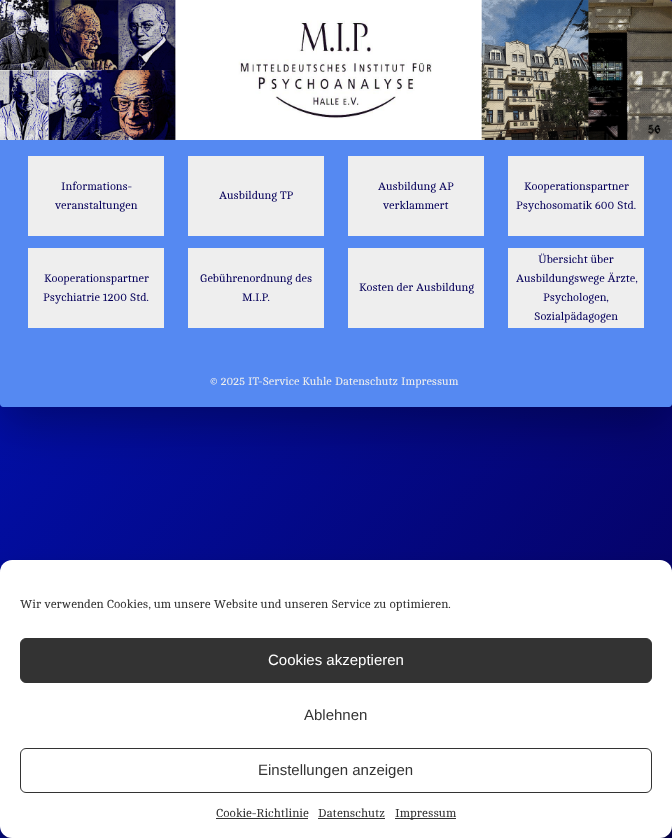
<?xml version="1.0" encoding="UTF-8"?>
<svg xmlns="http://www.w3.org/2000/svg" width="672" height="838">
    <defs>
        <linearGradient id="g1" gradientUnits="userSpaceOnUse" x1="-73" y1="91" x2="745" y2="747"><stop offset="0" stop-color="#0013BD"/><stop offset="1" stop-color="#06005A"/></linearGradient>
        <filter id="blur1" x="-50%" y="-200%" width="200%" height="500%"><feGaussianBlur stdDeviation="24"/></filter>
        <filter id="blur2" x="-50%" y="-200%" width="200%" height="500%"><feGaussianBlur stdDeviation="3"/></filter>
        <filter id="blur3" x="-50%" y="-200%" width="200%" height="500%"><feGaussianBlur stdDeviation="10"/></filter>
    </defs>
    <rect width="100%" height="100%" fill="#FFFFFF"/>
    <rect x="0" y="0" width="672" height="838" fill="url(#g1)"/>
    <rect x="0" y="16" width="672" height="407" rx="3" fill="#000000" fill-opacity="0.3" filter="url(#blur1)"/>
    <image x="0" y="0" width="672" height="140" href="img_01.png"/>
    <rect x="0" y="140" width="672" height="216" fill="#5589F2"/>
    <rect x="28" y="156" width="136" height="80" fill="#EEEEEE"/>
    <text x="61" y="190" font-family="Cambo" font-size="11.25" fill="#06005A">Informations-</text>
    <text x="55" y="209" font-family="Cambo" font-size="11.25" fill="#06005A">veranstaltungen</text>
    <rect x="188" y="156" width="136" height="80" fill="#EEEEEE"/>
    <text x="219" y="199" font-family="Cambo" font-size="11.25" fill="#06005A">Ausbildung TP</text>
    <rect x="348" y="156" width="136" height="80" fill="#EEEEEE"/>
    <text x="378" y="190" font-family="Cambo" font-size="11.25" fill="#06005A">Ausbildung AP</text>
    <text x="383" y="209" font-family="Cambo" font-size="11.25" fill="#06005A">verklammert</text>
    <rect x="508" y="156" width="136" height="80" fill="#EEEEEE"/>
    <text x="524" y="190" font-family="Cambo" font-size="11.25" fill="#06005A">Kooperationspartner</text>
    <text x="516" y="209" font-family="Cambo" font-size="11.25" fill="#06005A">Psychosomatik 600 Std.</text>
    <rect x="28" y="248" width="136" height="80" fill="#EEEEEE"/>
    <text x="44" y="282" font-family="Cambo" font-size="11.25" fill="#06005A">Kooperationspartner</text>
    <text x="43" y="301" font-family="Cambo" font-size="11.25" fill="#06005A">Psychiatrie 1200 Std.</text>
    <rect x="188" y="248" width="136" height="80" fill="#EEEEEE"/>
    <text x="200" y="282" font-family="Cambo" font-size="11.25" fill="#06005A">Gebührenordnung des</text>
    <text x="242" y="301" font-family="Cambo" font-size="11.25" fill="#06005A">M.I.P.</text>
    <rect x="348" y="248" width="136" height="80" fill="#EEEEEE"/>
    <text x="359" y="291" font-family="Cambo" font-size="11.25" fill="#06005A">Kosten der Ausbildung</text>
    <rect x="508" y="248" width="136" height="80" fill="#EEEEEE"/>
    <text x="538" y="263" font-family="Cambo" font-size="11.25" fill="#06005A">Übersicht über</text>
    <text x="516" y="282" font-family="Cambo" font-size="11.25" fill="#06005A">Ausbildungswege Ärzte,</text>
    <text x="543" y="301" font-family="Cambo" font-size="11.25" fill="#06005A">Psychologen,</text>
    <text x="534" y="320" font-family="Cambo" font-size="11.25" fill="#06005A">Sozialpädagogen</text>
    <path d="M 0 356 H 672 V 404 C 672 405.5 670.5 407 669 407 H 3 C 1.5 407 0 405.5 0 404 Z" fill="#5589F2"/>
    <text x="210" y="385" font-family="Cambo" font-size="11.25" fill="#EEEEEE">© 2025 IT-Service Kuhle</text>
    <text x="335" y="385" font-family="Cambo" font-size="11.25" fill="#EEEEEE">Datenschutz</text>
    <text x="401" y="385" font-family="Cambo" font-size="11.25" fill="#EEEEEE">Impressum</text>
    <rect x="0" y="566" width="672" height="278" rx="12" fill="#000000" fill-opacity="0.23" filter="url(#blur2)"/>
    <rect x="0" y="570" width="672" height="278" rx="12" fill="#000000" fill-opacity="0.19" filter="url(#blur3)"/>
    <rect x="0" y="560" width="672" height="278" rx="12" fill="#FFFFFF"/>
    <text x="20" y="608" font-family="Cambo" font-size="12" fill="#333333">Wir verwenden Cookies, um unsere Website und unseren Service zu optimieren.</text>
    <rect x="20.5" y="638.5" width="631" height="44" rx="5.5" fill="#333333" stroke="#333333"/>
    <text x="268" y="665" font-family="Liberation Sans" font-size="15" fill="#FFFFFF">Cookies akzeptieren</text>
    <text x="304" y="720" font-family="Liberation Sans" font-size="15" fill="#333333">Ablehnen</text>
    <rect x="20.5" y="748.5" width="631" height="44" rx="5.5" fill="none" stroke="#333333"/>
    <text x="258" y="775" font-family="Liberation Sans" font-size="15" fill="#333333">Einstellungen anzeigen</text>
    <text x="216" y="817" font-family="Cambo" font-size="12" fill="#333333">Cookie-Richtlinie</text>
    <rect x="216" y="818" width="92" height="1" fill="#333333"/>
    <text x="318" y="817" font-family="Cambo" font-size="12" fill="#333333">Datenschutz</text>
    <rect x="318" y="818" width="67" height="1" fill="#333333"/>
    <rect x="395" y="818" width="61" height="1" fill="#333333"/>
    <text x="395" y="817" font-family="Cambo" font-size="12" fill="#333333">Impressum</text>
</svg>
